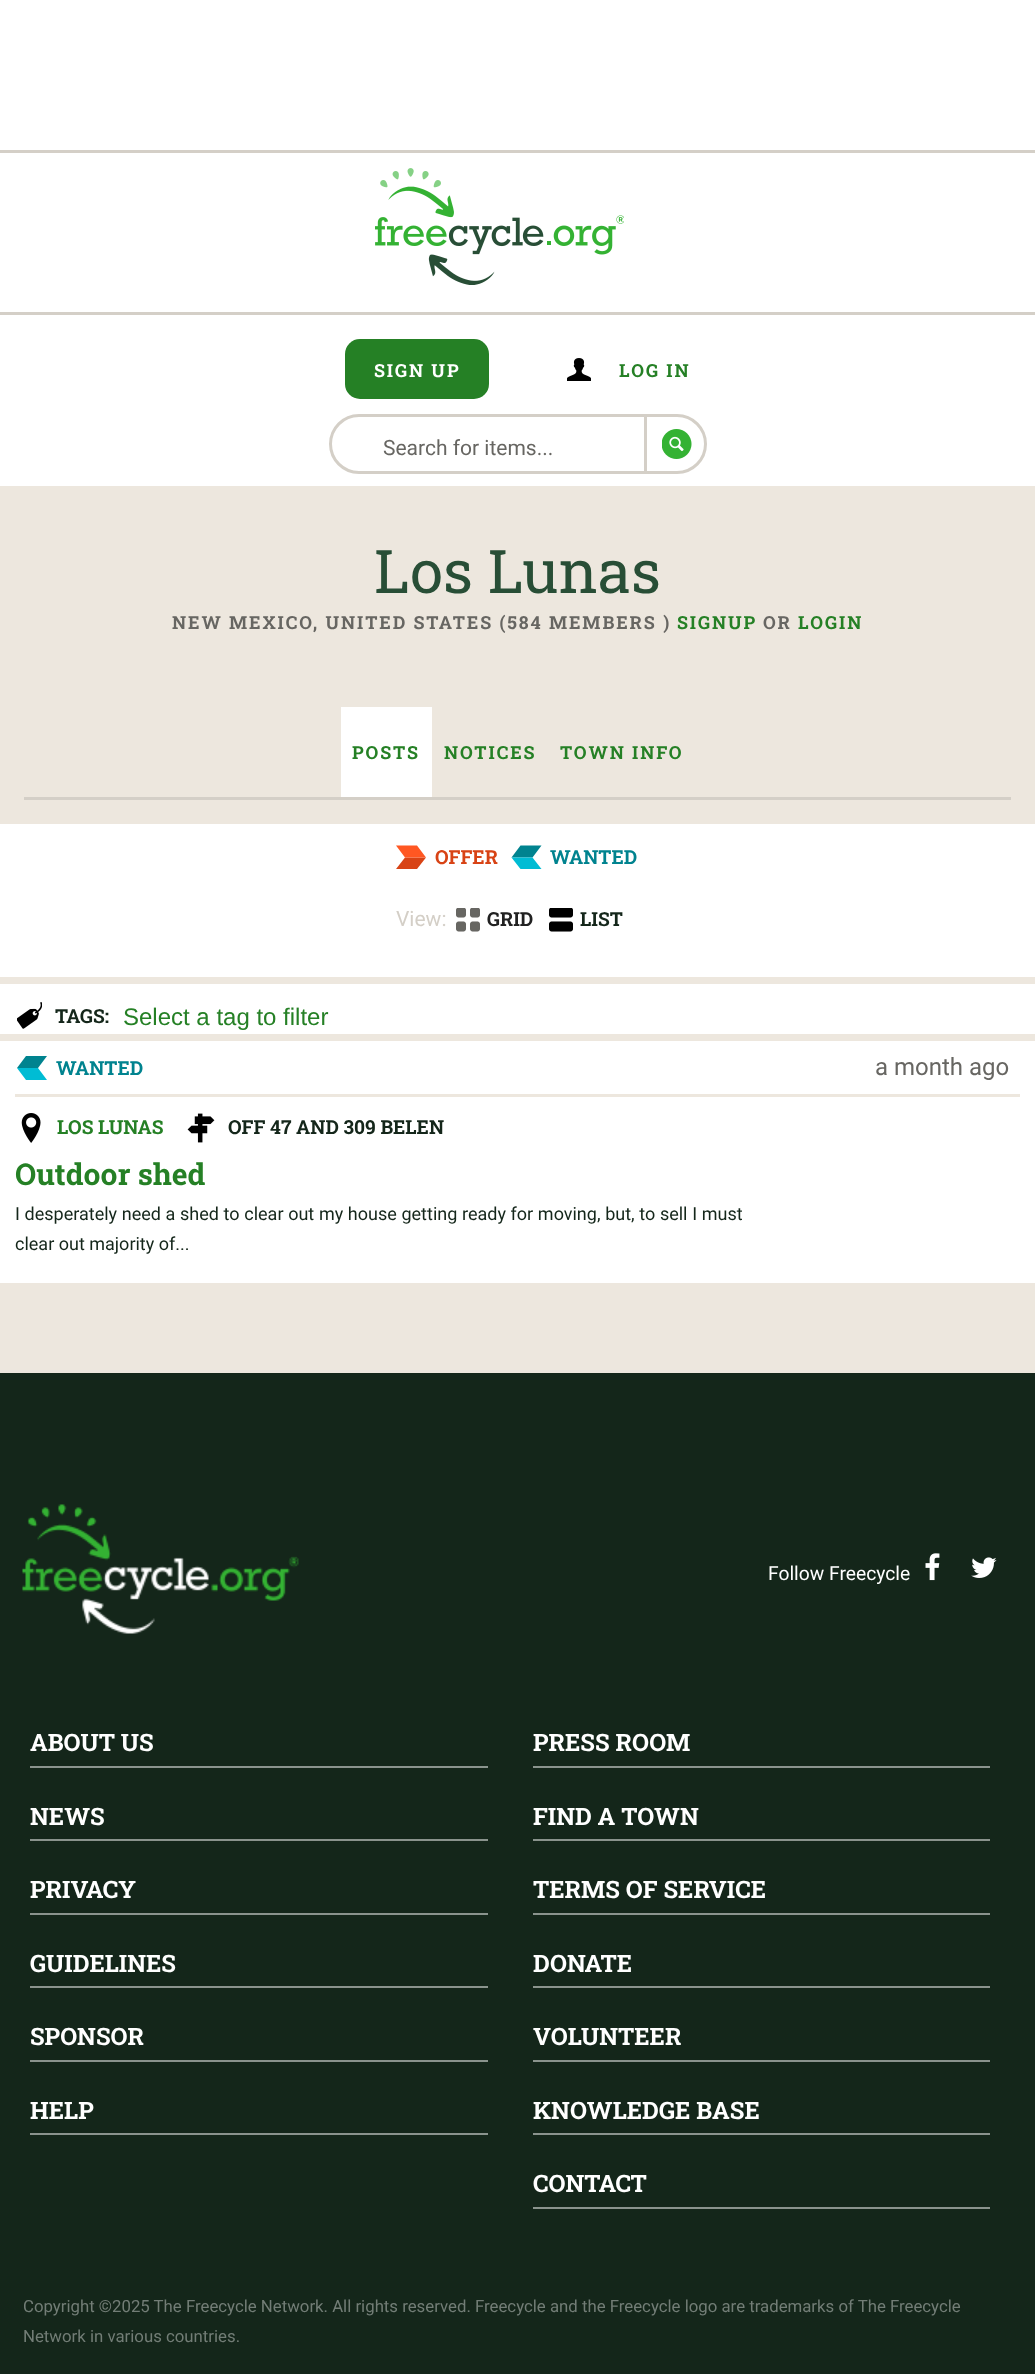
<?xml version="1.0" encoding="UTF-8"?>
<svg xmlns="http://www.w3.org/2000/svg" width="1035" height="2374">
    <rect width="100%" height="100%" fill="#EDE7DE"/>
    <rect x="0" y="0" width="1035" height="486" fill="#FFFFFF"/>
    <rect x="0" y="150" width="1035" height="3" fill="#D4CFC7"/>
    <image x="375" y="168" width="249" height="117" href="img_01.png"/>
    <rect x="0" y="312" width="1035" height="3" fill="#D4CFC7"/>
    <rect x="345" y="339" width="144" height="60" rx="15" fill="#258025"/>
    <text x="374" y="377" font-family="Roboto Slab" font-size="18" font-weight="700" letter-spacing="1.9" fill="#FFFFFF">SIGN UP</text>
    <image x="567" y="358" width="24" height="23" href="img_02.png"/>
    <text x="619" y="377" font-family="Roboto Slab" font-size="18" font-weight="700" letter-spacing="1.9" fill="#258025">LOG IN</text>
    <rect x="330.5" y="415.5" width="375" height="57" rx="28.5" fill="none" stroke="#D4CFC7" stroke-width="3"/>
    <rect x="644" y="417" width="3" height="54" fill="#D4CFC7"/>
    <text x="383" y="455" font-family="Roboto" font-size="21" fill="#676662">Search for items...</text>
    <image x="662" y="429" width="30" height="30" href="img_03.png"/>
    <text x="374" y="593" font-family="Roboto Slab" font-size="60" fill="#284E36">Los Lunas</text>
    <text x="172" y="629" font-family="Roboto Slab" font-size="18" font-weight="700" letter-spacing="1.9" fill="#676662">NEW MEXICO, UNITED STATES (584 MEMBERS )</text>
    <text x="677" y="629" font-family="Roboto Slab" font-size="18" font-weight="700" letter-spacing="1.9" fill="#258025">SIGNUP</text>
    <text x="763" y="629" font-family="Roboto Slab" font-size="18" font-weight="700" letter-spacing="1.9" fill="#676662">OR</text>
    <text x="798" y="629" font-family="Roboto Slab" font-size="18" font-weight="700" letter-spacing="1.9" fill="#258025">LOGIN</text>
    <rect x="24" y="797" width="987" height="3" fill="#D4CFC7"/>
    <rect x="341" y="707" width="91" height="90" fill="#FFFFFF"/>
    <text x="352" y="759" font-family="Roboto Slab" font-size="18" font-weight="700" letter-spacing="1.9" fill="#258025">POSTS</text>
    <text x="444" y="759" font-family="Roboto Slab" font-size="18" font-weight="700" letter-spacing="1.9" fill="#258025">NOTICES</text>
    <text x="560" y="759" font-family="Roboto Slab" font-size="18" font-weight="700" letter-spacing="1.9" fill="#258025">TOWN INFO</text>
    <rect x="0" y="824" width="1035" height="153" fill="#FFFFFF"/>
    <path d="M 417 869 H 396 L 405 857.5 H 426 Z" fill="#D84315"/>
    <path d="M 396 845.5 L 405 857.5 H 426 L 417 845.5 Z" fill="#FF5722"/>
    <text x="435" y="864" font-family="Roboto Slab" font-size="19.25" font-weight="700" fill="#D84315">OFFER</text>
    <path d="M 541.5 845.5 H 520.5 L 511.5 857.5 H 532.5 Z" fill="#00838F"/>
    <path d="M 541.5 869 H 520.5 L 511.5 857.5 H 532.5 Z" fill="#00BCD4"/>
    <text x="550" y="864" font-family="Roboto Slab" font-size="19.25" font-weight="700" fill="#00838F">WANTED</text>
    <text x="396" y="926" font-family="Roboto" font-size="21" fill="#D4CFC7">View:</text>
    <image x="456" y="908" width="24" height="24" href="img_04.png"/>
    <text x="487" y="926" font-family="Roboto Slab" font-size="19.25" font-weight="700" fill="#212121">GRID</text>
    <image x="549" y="908" width="24" height="24" href="img_05.png"/>
    <text x="580" y="926" font-family="Roboto Slab" font-size="19.25" font-weight="700" fill="#14261A">LIST</text>
    <rect x="0" y="984" width="1035" height="50" fill="#FFFFFF"/>
    <image x="17" y="1002" width="25" height="27" href="img_06.png"/>
    <text x="55" y="1023" font-family="Roboto Slab" font-size="19.25" font-weight="700" fill="#14261A">TAGS:</text>
    <text x="123" y="1025" font-family="Liberation Sans" font-size="24" fill="#258025">Select a tag to filter</text>
    <rect x="0" y="1041" width="1035" height="242" fill="#FFFFFF"/>
    <rect x="15" y="1094" width="1005" height="3" fill="#EDE7DE"/>
    <path d="M 47 1056 H 26 L 17 1068 H 38 Z" fill="#00838F"/>
    <path d="M 47 1080 H 26 L 17 1068 H 38 Z" fill="#00BCD4"/>
    <text x="56" y="1075" font-family="Roboto Slab" font-size="19.25" font-weight="700" fill="#00838F">WANTED</text>
    <text x="875" y="1075" font-family="Roboto" font-size="24" fill="#676662">a month ago</text>
    <image x="21" y="1113" width="20" height="30" href="img_07.png"/>
    <text x="57" y="1134" font-family="Roboto Slab" font-size="19.25" font-weight="700" fill="#258025">LOS LUNAS</text>
    <image x="187" y="1113" width="28" height="30" href="img_08.png"/>
    <text x="228" y="1134" font-family="Roboto Slab" font-size="19.25" font-weight="700" fill="#14261A">OFF 47 AND 309 BELEN</text>
    <text x="15" y="1185" font-family="Roboto Slab" font-size="30" font-weight="700" fill="#258025">Outdoor shed</text>
    <text font-family="Roboto" font-size="18" fill="#14261A">
        <tspan x="15" y="1220" word-spacing="0.2">I desperately need a shed to clear out my house getting ready for moving, but, to sell I must</tspan>
        <tspan x="15" y="1250">clear out majority of...</tspan>
    </text>
    <rect x="0" y="1373" width="1035" height="1001" fill="#14261A"/>
    <image x="22" y="1504" width="277" height="130" href="img_09.png"/>
    <text x="768" y="1580" font-family="Roboto" font-size="19.25" fill="#FFFFFF">Follow Freecycle</text>
    <image x="925" y="1553" width="15" height="28" href="img_10.png"/>
    <image x="971" y="1557" width="26" height="21" href="img_11.png"/>
    <rect x="30" y="1766" width="458" height="2" fill="#8A938D"/>
    <text x="30" y="1751" font-family="Roboto Slab" font-size="24" font-weight="700" fill="#FFFFFF">ABOUT US</text>
    <rect x="533" y="1766" width="457" height="2" fill="#8A938D"/>
    <text x="533" y="1751" font-family="Roboto Slab" font-size="24" font-weight="700" fill="#FFFFFF">PRESS ROOM</text>
    <rect x="30" y="1839" width="458" height="2" fill="#8A938D"/>
    <text x="30" y="1825" font-family="Roboto Slab" font-size="24" font-weight="700" fill="#FFFFFF">NEWS</text>
    <rect x="533" y="1839" width="457" height="2" fill="#8A938D"/>
    <text x="533" y="1825" font-family="Roboto Slab" font-size="24" font-weight="700" fill="#FFFFFF">FIND A TOWN</text>
    <rect x="30" y="1913" width="458" height="2" fill="#8A938D"/>
    <text x="30" y="1898" font-family="Roboto Slab" font-size="24" font-weight="700" fill="#FFFFFF">PRIVACY</text>
    <rect x="533" y="1913" width="457" height="2" fill="#8A938D"/>
    <text x="533" y="1898" font-family="Roboto Slab" font-size="24" font-weight="700" fill="#FFFFFF">TERMS OF SERVICE</text>
    <rect x="30" y="1986" width="458" height="2" fill="#8A938D"/>
    <text x="30" y="1972" font-family="Roboto Slab" font-size="24" font-weight="700" fill="#FFFFFF">GUIDELINES</text>
    <rect x="533" y="1986" width="457" height="2" fill="#8A938D"/>
    <text x="533" y="1972" font-family="Roboto Slab" font-size="24" font-weight="700" fill="#FFFFFF">DONATE</text>
    <rect x="30" y="2060" width="458" height="2" fill="#8A938D"/>
    <text x="30" y="2045" font-family="Roboto Slab" font-size="24" font-weight="700" fill="#FFFFFF">SPONSOR</text>
    <rect x="533" y="2060" width="457" height="2" fill="#8A938D"/>
    <text x="533" y="2045" font-family="Roboto Slab" font-size="24" font-weight="700" fill="#FFFFFF">VOLUNTEER</text>
    <rect x="30" y="2133" width="458" height="2" fill="#8A938D"/>
    <text x="30" y="2119" font-family="Roboto Slab" font-size="24" font-weight="700" fill="#FFFFFF">HELP</text>
    <rect x="533" y="2133" width="457" height="2" fill="#8A938D"/>
    <text x="533" y="2119" font-family="Roboto Slab" font-size="24" font-weight="700" fill="#FFFFFF">KNOWLEDGE BASE</text>
    <rect x="533" y="2207" width="457" height="2" fill="#8A938D"/>
    <text x="533" y="2192" font-family="Roboto Slab" font-size="24" font-weight="700" fill="#FFFFFF">CONTACT</text>
    <text font-family="Roboto" font-size="16.8" fill="#727D76">
        <tspan x="23" y="2312">Copyright ©2025 The Freecycle Network. All rights reserved. Freecycle and the Freecycle logo are trademarks of The Freecycle</tspan>
        <tspan x="23" y="2342">Network in various countries.</tspan>
    </text>
</svg>
